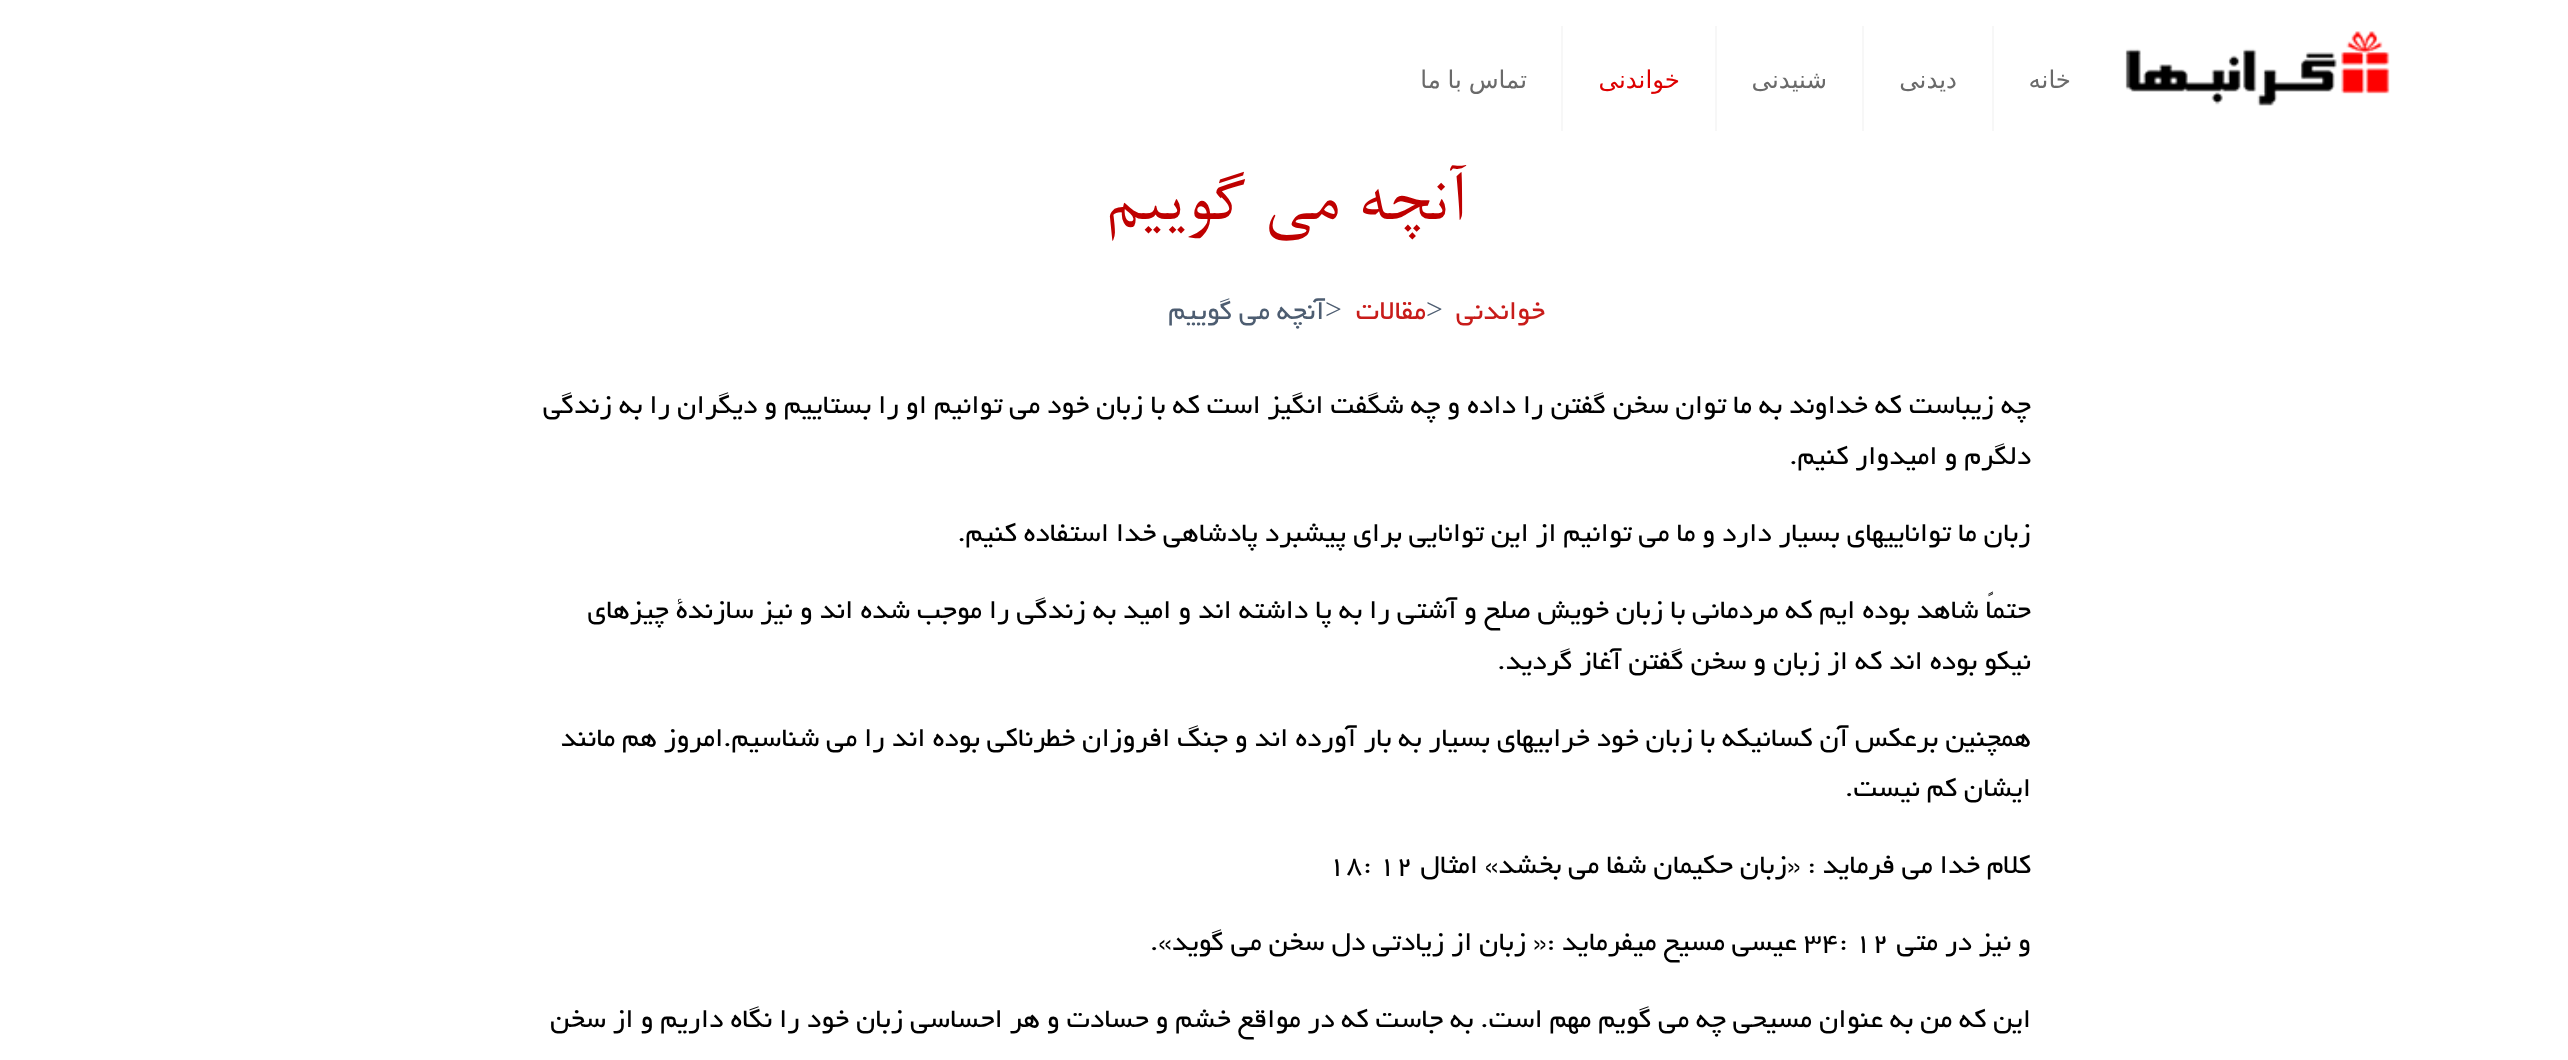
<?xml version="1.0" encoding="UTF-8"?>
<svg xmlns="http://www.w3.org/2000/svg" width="2568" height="1060">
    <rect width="100%" height="100%" fill="#FFFFFF"/>
    <image x="2125" y="31" width="265" height="75" href="img_01.png"/>
    <rect x="1992" y="26" width="2" height="105" fill="#F7F7F7"/>
    <text x="2071" y="88" font-family="DejaVu Sans" font-size="24.5" direction="rtl" fill="#6A6A6A">خانه</text>
    <rect x="1862" y="26" width="2" height="105" fill="#F7F7F7"/>
    <text x="1957" y="88" font-family="DejaVu Sans" font-size="24.5" direction="rtl" fill="#6A6A6A">دیدنی</text>
    <rect x="1715" y="26" width="2" height="105" fill="#F7F7F7"/>
    <text x="1827" y="88" font-family="DejaVu Sans" font-size="24.5" direction="rtl" fill="#6A6A6A">شنیدنی</text>
    <rect x="1561" y="26" width="2" height="105" fill="#F7F7F7"/>
    <text x="1680" y="88" font-family="DejaVu Sans" font-size="24.5" direction="rtl" fill="#DD0000">خواندنی</text>
    <text x="1527" y="88" word-spacing="-1" font-family="DejaVu Sans" font-size="24.5" direction="rtl" fill="#6A6A6A">تماس با ما</text>
    <text x="1465" y="219" font-family="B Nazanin" font-size="78.75" direction="rtl" fill="#BF0000">آنچه می گوییم</text>
    <text x="1545" y="319" font-family="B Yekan" font-size="29.75" direction="rtl" fill="#C81C1A">خواندنی</text>
    <text x="1426" y="319" font-family="Liberation Serif" font-size="29.75" fill="#4D5D71">&gt;</text>
    <text x="1426" y="319" font-family="B Yekan" font-size="29.75" direction="rtl" fill="#C81C1A">مقالات</text>
    <text x="1325" y="319" font-family="Liberation Serif" font-size="29.75" fill="#4D5D71">&gt;</text>
    <text x="1325" y="319" font-family="B Yekan" font-size="29.75" direction="rtl" fill="#4D5D71">آنچه می گوییم</text>
    <text font-family="B Yekan" font-size="29.75" direction="rtl" fill="#000000">
        <tspan x="2031" y="413">چه زیباست که خداوند به ما توان سخن گفتن را داده و چه شگفت انگیز است که با زبان خود می توانیم او را بستاییم و دیگران را به زندگی</tspan>
        <tspan x="2031" y="464">دلگرم و امیدوار کنیم.</tspan>
    </text>
    <text x="2031" y="541" font-family="B Yekan" font-size="29.75" direction="rtl" fill="#000000">زبان ما تواناییهای بسیار دارد و ما می توانیم از این توانایی برای پیشبرد پادشاهی خدا استفاده کنیم.</text>
    <text font-family="B Yekan" font-size="29.75" direction="rtl" fill="#000000">
        <tspan x="2031" y="618">حتماً شاهد بوده ایم که مردمانی با زبان خویش صلح و آشتی را به پا داشته اند و امید به زندگی را موجب شده اند و نیز سازندۀ چیزهای</tspan>
        <tspan x="2031" y="669">نیکو بوده اند که از زبان و سخن گفتن آغاز گردید.</tspan>
    </text>
    <text font-family="B Yekan" font-size="29.75" direction="rtl" fill="#000000">
        <tspan x="2031" y="746">همچنین برعکس آن کسانیکه با زبان خود خرابیهای بسیار به بار آورده اند و جنگ افروزان خطرناکی بوده اند را می شناسیم.امروز هم مانند</tspan>
        <tspan x="2031" y="796">ایشان کم نیست.</tspan>
    </text>
    <text x="2031" y="873" font-family="B Yekan" font-size="29.75" direction="rtl" fill="#000000">کلام خدا می فرماید : «زبان حکیمان شفا می بخشد» امثال</text>
    <text x="1328" y="873" font-family="B Yekan" font-size="29.75" fill="#000000">18: 12</text>
    <text x="2031" y="950" font-family="B Yekan" font-size="29.75" direction="rtl" fill="#000000">و نیز در متی</text>
    <text x="1804" y="950" font-family="B Yekan" font-size="29.75" fill="#000000">34: 12</text>
    <text x="1797" y="950" font-family="B Yekan" font-size="29.75" direction="rtl" fill="#000000">عیسی مسیح میفرماید :« زبان از زیادتی دل سخن می گوید».</text>
    <text x="2031" y="1027" font-family="B Yekan" font-size="29.75" direction="rtl" fill="#000000">این که من به عنوان مسیحی چه می گویم مهم است. به جاست که در مواقع خشم و حسادت و هر احساسی زبان خود را نگاه داریم و از سخن</text>
</svg>
